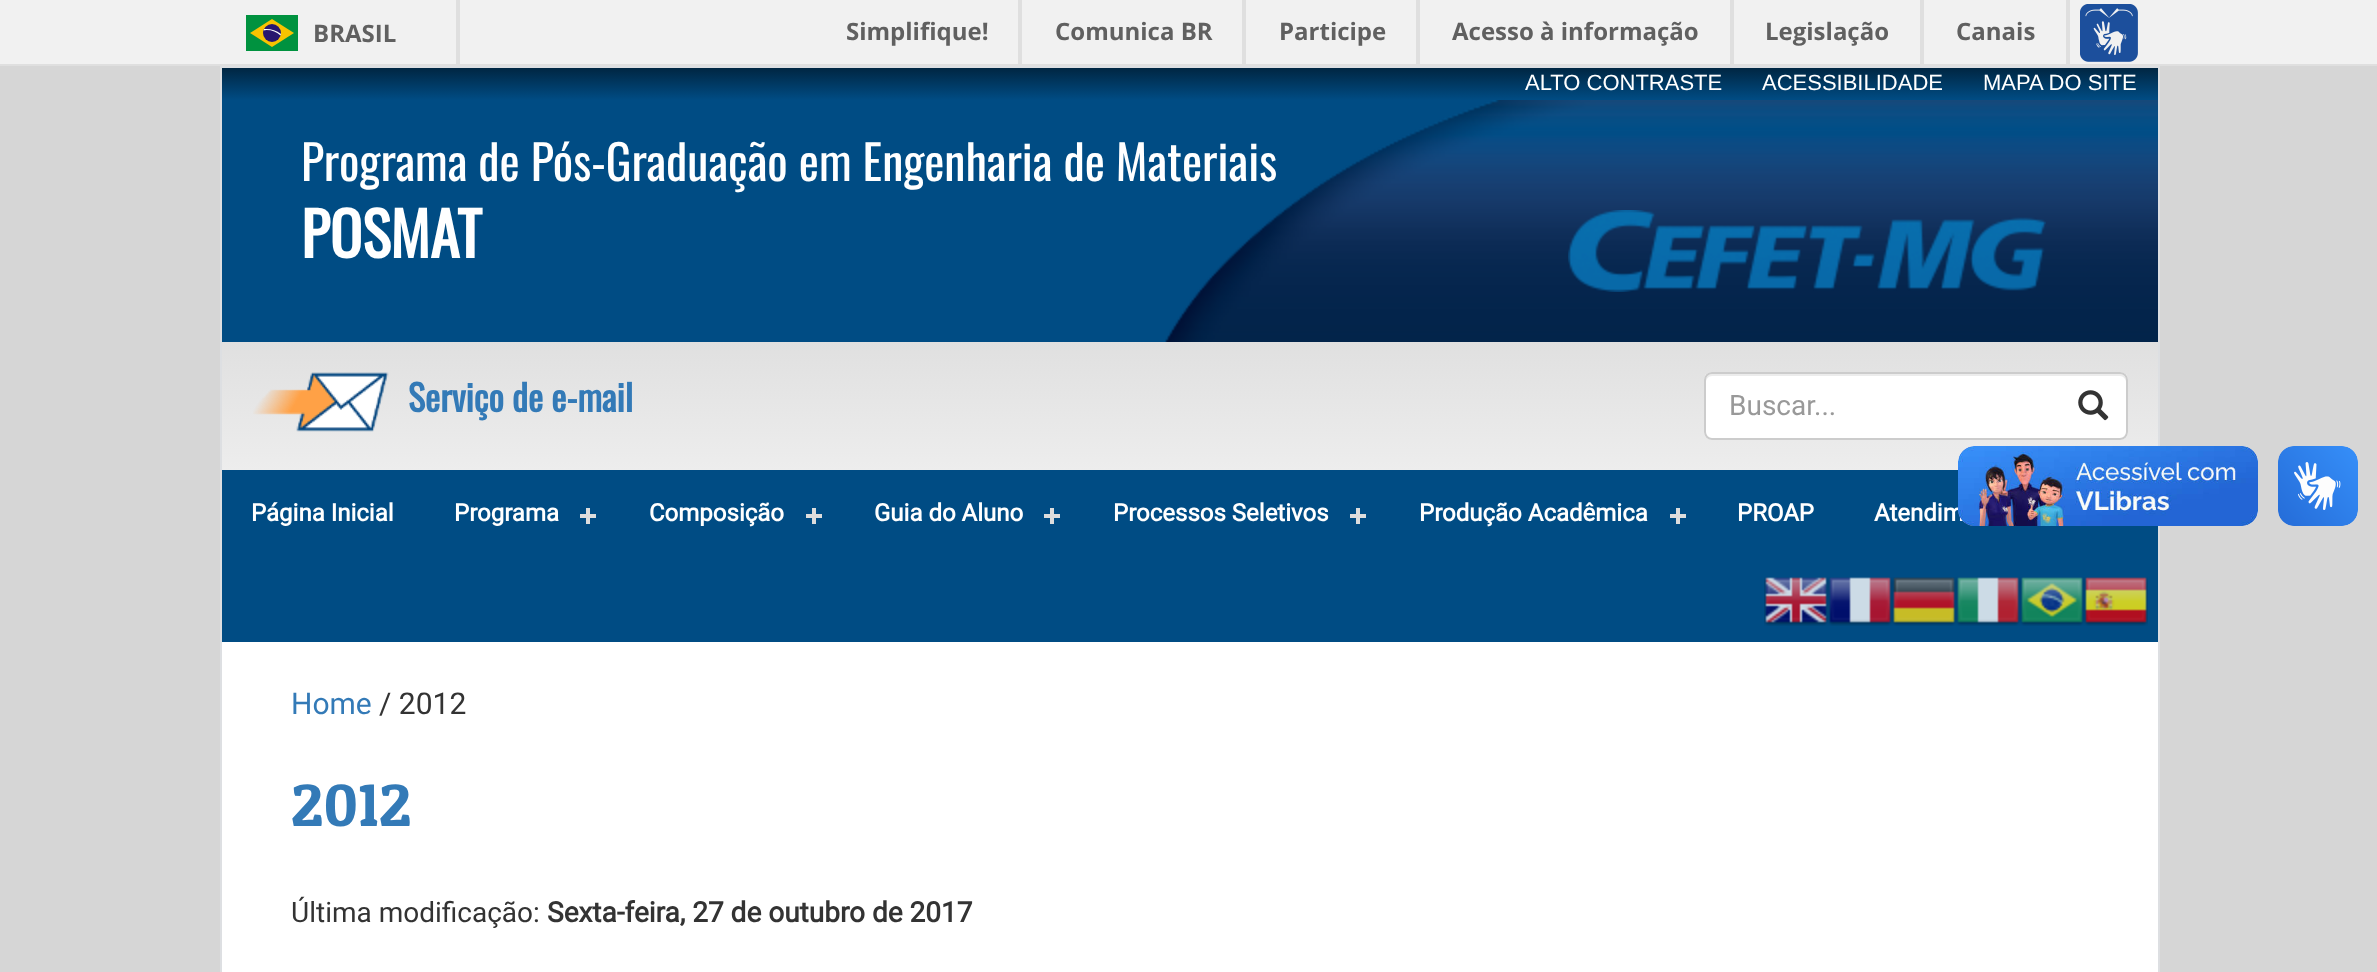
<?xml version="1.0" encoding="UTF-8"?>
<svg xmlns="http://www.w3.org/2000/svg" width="2377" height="972">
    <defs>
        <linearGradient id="g1" gradientUnits="userSpaceOnUse" x1="1190" y1="100" x2="1190" y2="68"><stop offset="0" stop-color="#004C84"/><stop offset="1" stop-color="#002642"/></linearGradient>
        <linearGradient id="g2" gradientUnits="userSpaceOnUse" x1="1190" y1="342" x2="1190" y2="470"><stop offset="0" stop-color="#E0E0E0"/><stop offset="1" stop-color="#EDEDED"/></linearGradient>
    </defs>
    <rect width="100%" height="100%" fill="#D6D6D6"/>
    <rect x="0" y="0" width="2377" height="64" fill="#F1F1F1"/>
    <rect x="0" y="64" width="2377" height="2" fill="#DFDFDF"/>
    <rect x="456" y="0" width="4" height="64" fill="#DFDFDF"/>
    <rect x="246" y="15" width="52" height="36" fill="#00923F"/>
    <path d="M 272 19 L 250 33 L 272 47 L 294 33 Z" fill="#F8C300"/>
    <circle cx="272" cy="33" r="9" fill="#28166F"/>
    <path d="M 266.5 30 C 272 30 277 32 280.5 35.5 L 281 34 C 276 30 270 28.5 264 29 L 263.5 30.5 Z" fill="#FFFFFF"/>
    <text x="313" y="42" font-family="Open Sans" font-size="24" font-weight="700" fill="#606060">BRASIL</text>
    <rect x="1018" y="0" width="4" height="64" fill="#DFDFDF"/>
    <text x="846" y="40" font-family="Open Sans" font-size="24" font-weight="700" fill="#606060">Simplifique!</text>
    <rect x="1242" y="0" width="4" height="64" fill="#DFDFDF"/>
    <text x="1055" y="40" font-family="Open Sans" font-size="24" font-weight="700" fill="#606060">Comunica BR</text>
    <rect x="1416" y="0" width="4" height="64" fill="#DFDFDF"/>
    <text x="1279" y="40" font-family="Open Sans" font-size="24" font-weight="700" fill="#606060">Participe</text>
    <rect x="1730" y="0" width="4" height="64" fill="#DFDFDF"/>
    <text x="1452" y="40" font-family="Open Sans" font-size="24" font-weight="700" fill="#606060">Acesso à informação</text>
    <rect x="1920" y="0" width="4" height="64" fill="#DFDFDF"/>
    <text x="1765" y="40" font-family="Open Sans" font-size="24" font-weight="700" fill="#606060">Legislação</text>
    <rect x="2066" y="0" width="4" height="64" fill="#DFDFDF"/>
    <text x="1956" y="40" font-family="Open Sans" font-size="24" font-weight="700" fill="#606060">Canais</text>
    <image x="2080" y="4" width="58" height="58" href="img_01.png"/>
    <rect x="222" y="642" width="1936" height="330" fill="#FFFFFF"/>
    <rect x="221" y="67" width="1938" height="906" fill="none" stroke="#DDDFE2" stroke-width="2"/>
    <rect x="222" y="68" width="1936" height="32" fill="url(#g1)"/>
    <text x="1525" y="90" font-family="Liberation Sans" font-size="22" fill="#FFFFFF">ALTO CONTRASTE</text>
    <text x="1762" y="90" font-family="Liberation Sans" font-size="22" fill="#FFFFFF">ACESSIBILIDADE</text>
    <text x="1983" y="90" font-family="Liberation Sans" font-size="22" fill="#FFFFFF">MAPA DO SITE</text>
    <rect x="222" y="100" width="1277" height="242" fill="#004C84"/>
    <image x="1165" y="100" width="993" height="242" href="img_02.png"/>
    <text x="301" y="181" font-family="Oswald" font-size="48" fill="#FFFFFF">Programa de Pós-Graduação em Engenharia de Materiais</text>
    <text x="301" y="258" font-family="Oswald" font-size="60" font-weight="700" fill="#FFFFFF">POSMAT</text>
    <image x="1568" y="210" width="478" height="82" href="img_03.png"/>
    <rect x="222" y="342" width="1936" height="128" fill="url(#g2)"/>
    <image x="253" y="372" width="136" height="60" href="img_04.png"/>
    <text x="408" y="412" font-family="Oswald" font-size="36" font-weight="700" fill="#337AB7">Serviço de e-mail</text>
    <rect x="1704" y="372" width="424" height="68" rx="8" fill="#FFFFFF"/>
    <path d="M 1712 376 H 2120 C 2123 376 2126 379 2126 382 V 380 C 2126 377 2123 374 2120 374 H 1712 C 1709 374 1706 377 1706 380 V 382 C 1706 379 1709 376 1712 376 Z" fill="#ECECEC"/>
    <rect x="1705" y="373" width="422" height="66" rx="7" fill="none" stroke="#CCCCCC" stroke-width="2"/>
    <text x="1729" y="415" font-family="Roboto" font-size="28" fill="#999999">Buscar...</text>
    <image x="2078" y="390" width="31" height="31" href="img_05.png"/>
    <rect x="222" y="470" width="1936" height="172" fill="#004C84"/>
    <text x="251" y="521" font-family="Roboto" font-size="24" font-weight="700" fill="#FFFFFF">Página Inicial</text>
    <text x="454" y="521" font-family="Roboto" font-size="24" font-weight="700" fill="#FFFFFF">Programa</text>
    <rect x="586" y="508" width="4" height="16" fill="#DDDDDD"/>
    <rect x="580" y="514" width="16" height="4" fill="#DDDDDD"/>
    <text x="649" y="521" font-family="Roboto" font-size="24" font-weight="700" fill="#FFFFFF">Composição</text>
    <rect x="812" y="508" width="4" height="16" fill="#DDDDDD"/>
    <rect x="806" y="514" width="16" height="4" fill="#DDDDDD"/>
    <text x="874" y="521" font-family="Roboto" font-size="24" font-weight="700" fill="#FFFFFF">Guia do Aluno</text>
    <rect x="1050" y="508" width="4" height="16" fill="#DDDDDD"/>
    <rect x="1044" y="514" width="16" height="4" fill="#DDDDDD"/>
    <text x="1113" y="521" font-family="Roboto" font-size="24" font-weight="700" fill="#FFFFFF">Processos Seletivos</text>
    <rect x="1356" y="508" width="4" height="16" fill="#DDDDDD"/>
    <rect x="1350" y="514" width="16" height="4" fill="#DDDDDD"/>
    <text x="1419" y="521" font-family="Roboto" font-size="24" font-weight="700" fill="#FFFFFF">Produção Acadêmica</text>
    <rect x="1676" y="508" width="4" height="16" fill="#DDDDDD"/>
    <rect x="1670" y="514" width="16" height="4" fill="#DDDDDD"/>
    <text x="1737" y="521" font-family="Roboto" font-size="24" font-weight="700" fill="#FFFFFF">PROAP</text>
    <text x="1874" y="521" font-family="Roboto" font-size="24" font-weight="700" fill="#FFFFFF">Atendim</text>
    <image x="1764" y="577" width="64" height="49" href="img_06.png"/>
    <image x="1828" y="577" width="64" height="49" href="img_07.png"/>
    <image x="1892" y="577" width="64" height="49" href="img_08.png"/>
    <image x="1956" y="577" width="64" height="49" href="img_09.png"/>
    <image x="2020" y="577" width="64" height="49" href="img_10.png"/>
    <image x="2084" y="577" width="64" height="49" href="img_11.png"/>
    <text x="291" y="714" font-family="Roboto" font-size="30" fill="#337AB7">Home</text>
    <text x="379" y="714" font-family="Roboto" font-size="30" fill="#333333">/ 2012</text>
    <text x="291" y="826" font-family="Patua One" font-size="60" fill="#337AB7">2012</text>
    <text x="291" y="922" font-family="Roboto" font-size="28" fill="#333333">Última modificação:</text>
    <text x="547" y="922" font-family="Roboto" font-size="28" font-weight="700" fill="#333333">Sexta-feira, 27 de outubro de 2017</text>
    <image x="1958" y="446" width="300" height="80" href="img_12.png"/>
    <image x="2278" y="446" width="80" height="80" href="img_13.png"/>
</svg>
